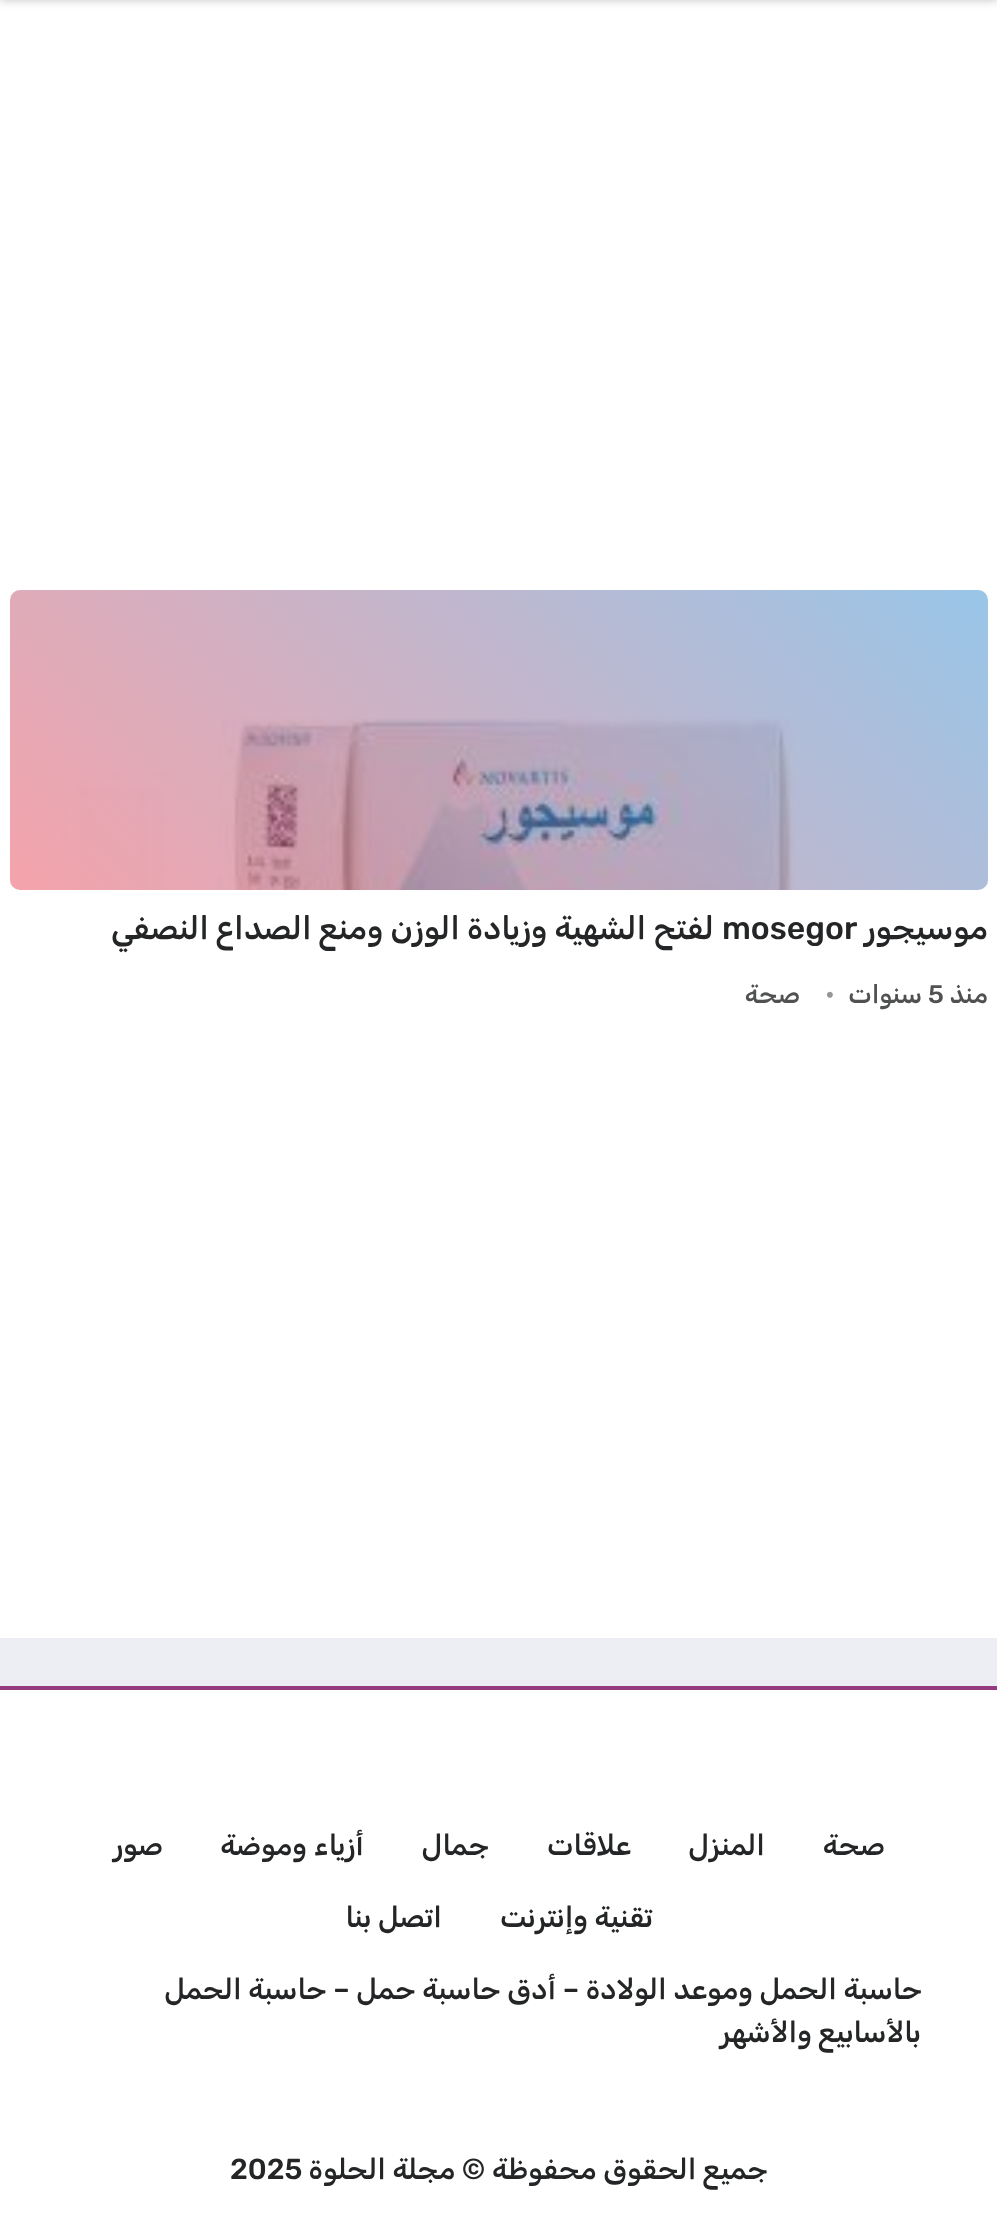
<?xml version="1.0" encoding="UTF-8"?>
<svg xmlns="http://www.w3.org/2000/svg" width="997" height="2232">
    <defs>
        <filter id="blur1" x="-50%" y="-200%" width="200%" height="500%"><feGaussianBlur stdDeviation="5"/></filter>
        <linearGradient id="g1" gradientUnits="userSpaceOnUse" x1="180" y1="1060" x2="819" y2="421"><stop offset="0" stop-color="#E5192C" stop-opacity="0.4"/><stop offset="1" stop-color="#0070C6" stop-opacity="0.4"/></linearGradient>
    </defs>
    <rect width="100%" height="100%" fill="#EDEEF3"/>
    <rect x="0" y="0" width="997" height="1638" fill="#FFFFFF"/>
    <rect x="0" y="-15" width="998" height="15" fill="#C3C3C3" filter="url(#blur1)"/>
    <rect x="10" y="590" width="978" height="300" rx="10" fill="#ECECEC"/>
    <image x="10" y="590" width="978" height="300" href="img_01.png"/>
    <rect x="10" y="590" width="978" height="300" rx="10" fill="url(#g1)"/>
    <text x="988" y="939" font-family="Rubik" font-size="32" font-weight="500" direction="rtl" fill="#242526">موسيجور</text>
    <text x="722" y="939" font-family="Rubik" font-size="32" font-weight="500" fill="#242526">mosegor</text>
    <text x="714" y="939" font-family="Rubik" font-size="32" font-weight="500" direction="rtl" fill="#242526">لفتح الشهية وزيادة الوزن ومنع الصداع النصفي</text>
    <text x="988" y="1003" font-family="Rubik" font-size="25.5" font-weight="500" direction="rtl" fill="#505151">منذ</text>
    <text x="928" y="1003" font-family="Rubik" font-size="25.5" font-weight="500" fill="#505151">5</text>
    <text x="922" y="1003" font-family="Rubik" font-size="25.5" font-weight="500" direction="rtl" fill="#505151">سنوات</text>
    <text x="825" y="1003" font-family="Rubik" font-size="25.5" font-weight="500" fill="#969697">•</text>
    <text x="800" y="1003" font-family="Rubik" font-size="25.5" font-weight="500" direction="rtl" fill="#505151">صحة</text>
    <rect x="0" y="1686" width="997" height="4" fill="#963A7F"/>
    <rect x="0" y="1690" width="997" height="542" fill="#FFFFFF"/>
    <text x="885" y="1855" font-family="Rubik" font-size="28.8" font-weight="500" direction="rtl" fill="#242526">صحة</text>
    <text x="765" y="1855" font-family="Rubik" font-size="28.8" font-weight="500" direction="rtl" fill="#242526">المنزل</text>
    <text x="631" y="1855" font-family="Rubik" font-size="28.8" font-weight="500" direction="rtl" fill="#242526">علاقات</text>
    <text x="489" y="1855" font-family="Rubik" font-size="28.8" font-weight="500" direction="rtl" fill="#242526">جمال</text>
    <text x="364" y="1855" font-family="Rubik" font-size="28.8" font-weight="500" direction="rtl" fill="#242526">أزياء وموضة</text>
    <text x="163" y="1855" font-family="Rubik" font-size="28.8" font-weight="500" direction="rtl" fill="#242526">صور</text>
    <text x="653" y="1927" font-family="Rubik" font-size="28.8" font-weight="500" direction="rtl" fill="#242526">تقنية وإنترنت</text>
    <text x="442" y="1927" font-family="Rubik" font-size="28.8" font-weight="500" direction="rtl" fill="#242526">اتصل بنا</text>
    <text x="922" y="1999" font-family="Rubik" font-size="28.8" font-weight="500" direction="rtl" fill="#242526">حاسبة الحمل وموعد الولادة – أدق حاسبة حمل – حاسبة الحمل</text>
    <text x="921" y="2042" font-family="Rubik" font-size="28.8" font-weight="500" direction="rtl" fill="#242526">بالأسابيع والأشهر</text>
    <text x="768" y="2179" font-family="Rubik" font-size="28.8" font-weight="500" direction="rtl" fill="#242526">جميع الحقوق محفوظة © مجلة الحلوة</text>
    <text x="230" y="2179" font-family="Rubik" font-size="28.8" font-weight="500" fill="#242526">2025</text>
</svg>
